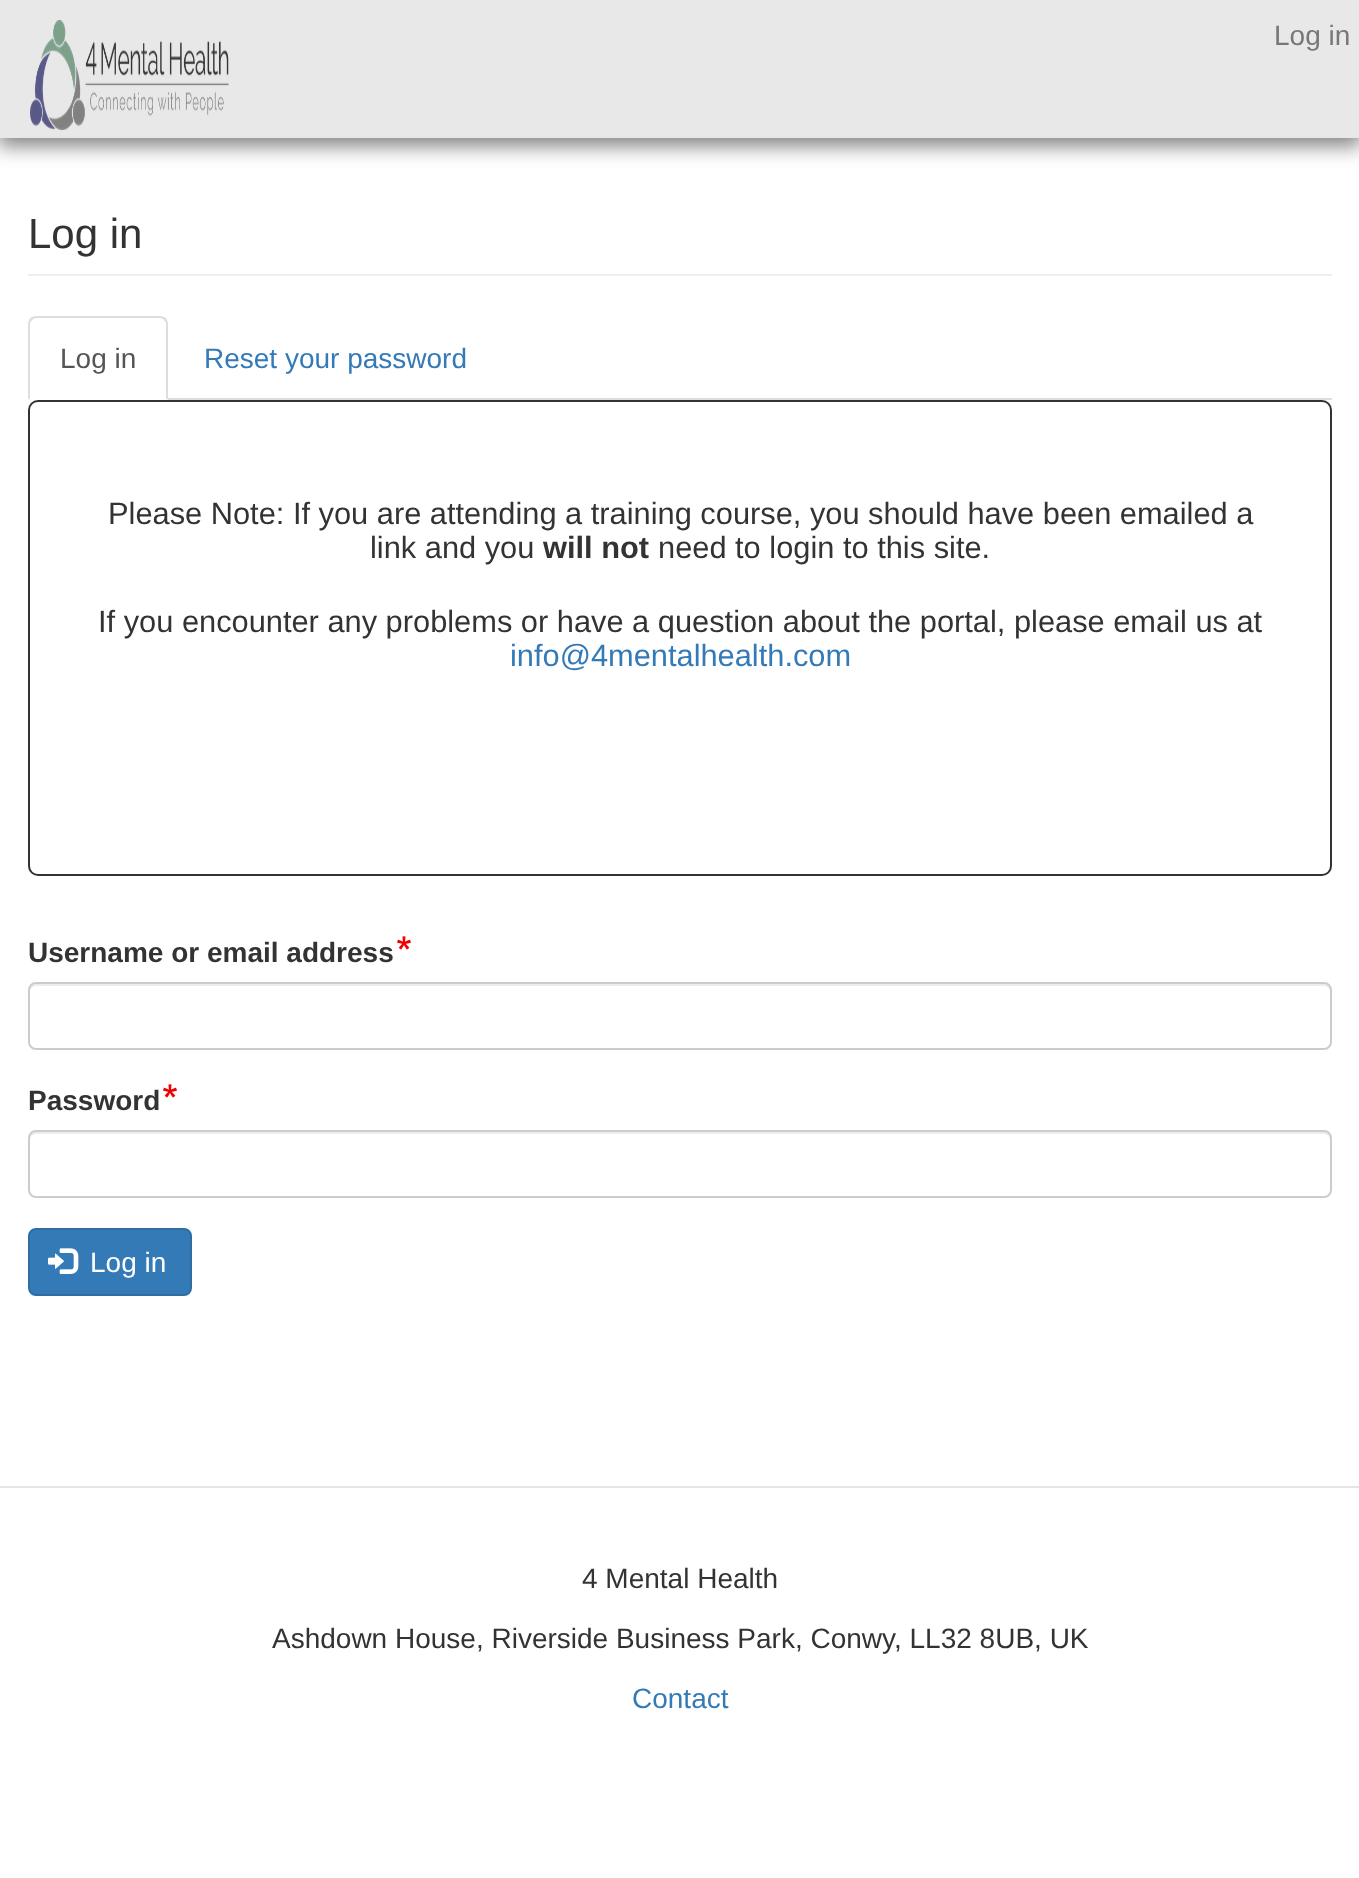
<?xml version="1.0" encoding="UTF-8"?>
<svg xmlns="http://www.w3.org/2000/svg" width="1359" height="1878">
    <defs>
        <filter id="blur1" x="-50%" y="-200%" width="200%" height="500%"><feGaussianBlur stdDeviation="10"/></filter>
    </defs>
    <rect width="100%" height="100%" fill="#FFFFFF"/>
    <rect x="-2" y="4" width="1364" height="142" fill="#808080" filter="url(#blur1)"/>
    <rect x="0" y="0" width="1359" height="136" fill="#E8E8E8"/>
    <rect x="0" y="136" width="1359" height="2" fill="#E7E7E7"/>
    <image x="30" y="20" width="199" height="110" href="img_01.png"/>
    <text x="1274" y="45" font-family="Liberation Sans" font-size="28" fill="#777777">Log in</text>
    <rect x="28" y="274" width="1304" height="2" fill="#EEEEEE"/>
    <text x="28" y="248" font-family="Liberation Sans" font-size="42" fill="#333333">Log in</text>
    <rect x="168" y="398" width="1164" height="2" fill="#DDDDDD"/>
    <path d="M 36 316 C 34 316 32 317 30 318 L 32 320 L 35 318 H 161 L 164 320 L 166 318 C 164 317 162 316 160 316 Z" fill="#DDDDDD"/>
    <path d="M 168 400 V 324 C 168 322 167 320 166 318 L 164 320 L 166 323 V 398 Z" fill="#DDDDDD"/>
    <path d="M 28 400 L 30 398 V 323 L 32 320 L 30 318 C 29 320 28 322 28 324 Z" fill="#DDDDDD"/>
    <text x="60" y="368" font-family="Liberation Sans" font-size="28" fill="#555555">Log in</text>
    <text x="204" y="368" font-family="Liberation Sans" font-size="28" fill="#337AB7">Reset your password</text>
    <rect x="29" y="401" width="1302" height="474" rx="9" fill="none" stroke="#333333" stroke-width="2"/>
    <text x="108" y="524" font-family="Liberation Sans" font-size="30.8" fill="#333333">Please Note: If you are attending a training course, you should have been emailed a</text>
    <text x="370" y="558" font-family="Liberation Sans" font-size="30.8" fill="#333333">link and you</text>
    <text x="543" y="558" font-family="Liberation Sans" font-size="30.8" font-weight="700" fill="#333333">will not</text>
    <text x="658" y="558" font-family="Liberation Sans" font-size="30.8" fill="#333333">need to login to this site.</text>
    <text x="98" y="632" font-family="Liberation Sans" font-size="30.8" fill="#333333">If you encounter any problems or have a question about the portal, please email us at</text>
    <text x="510" y="666" font-family="Liberation Sans" font-size="30.8" fill="#337AB7">info@4mentalhealth.com</text>
    <text x="28" y="962" font-family="Liberation Sans" font-size="28" font-weight="700" fill="#333333">Username or email address</text>
    <image x="397" y="936" width="14" height="14" href="img_02.png"/>
    <path d="M 36 986 H 1324 C 1327 986 1330 989 1330 992 V 990 C 1330 987 1327 984 1324 984 H 36 C 33 984 30 987 30 990 V 992 C 30 989 33 986 36 986 Z" fill="#ECECEC"/>
    <rect x="29" y="983" width="1302" height="66" rx="7" fill="none" stroke="#CCCCCC" stroke-width="2"/>
    <text x="28" y="1110" font-family="Liberation Sans" font-size="28" font-weight="700" fill="#333333">Password</text>
    <image x="163" y="1084" width="14" height="14" href="img_02.png"/>
    <path d="M 36 1134 H 1324 C 1327 1134 1330 1137 1330 1140 V 1138 C 1330 1135 1327 1132 1324 1132 H 36 C 33 1132 30 1135 30 1138 V 1140 C 30 1137 33 1134 36 1134 Z" fill="#ECECEC"/>
    <rect x="29" y="1131" width="1302" height="66" rx="7" fill="none" stroke="#CCCCCC" stroke-width="2"/>
    <rect x="29" y="1229" width="162" height="66" rx="7" fill="#337AB7" stroke="#2E6DA4" stroke-width="2"/>
    <image x="48" y="1248" width="31" height="26" href="img_03.png"/>
    <text x="90" y="1272" font-family="Liberation Sans" font-size="28" fill="#FFFFFF">Log in</text>
    <rect x="0" y="1486" width="1359" height="2" fill="#E5E5E5"/>
    <text x="582" y="1588" font-family="Liberation Sans" font-size="28" fill="#333333">4 Mental Health</text>
    <text x="272" y="1648" font-family="Liberation Sans" font-size="28" fill="#333333">Ashdown House, Riverside Business Park, Conwy, LL32 8UB, UK</text>
    <text x="632" y="1708" font-family="Liberation Sans" font-size="28" fill="#337AB7">Contact</text>
</svg>
